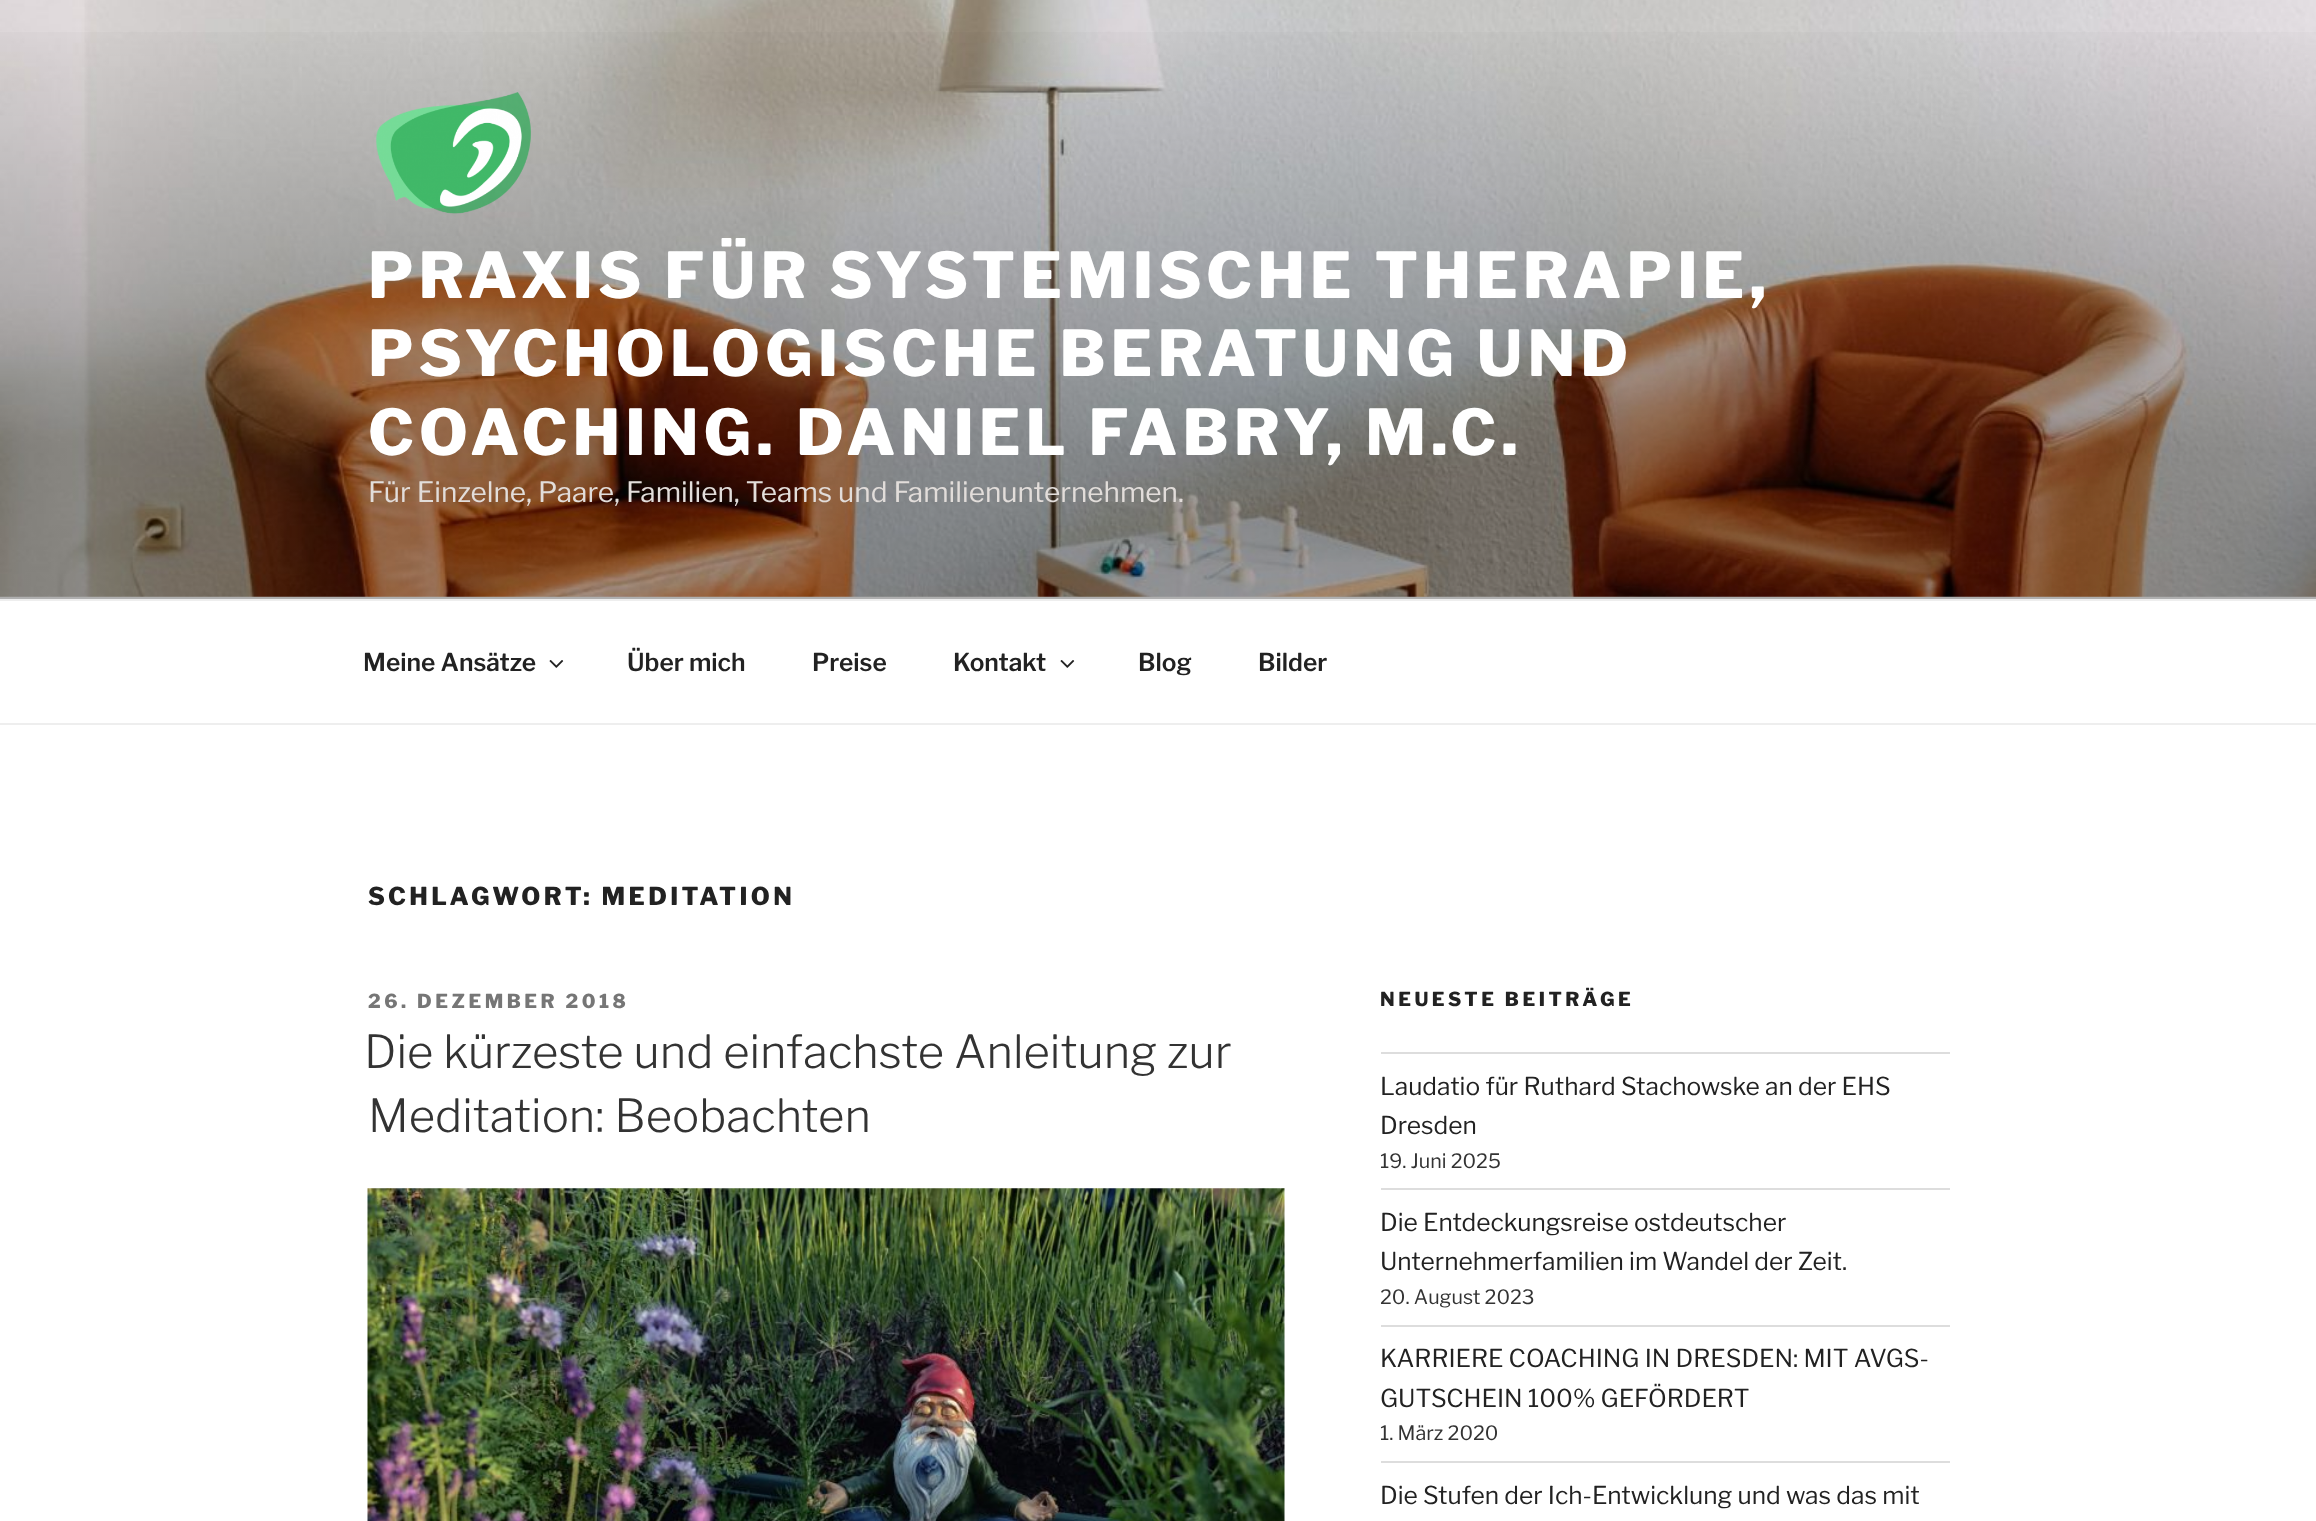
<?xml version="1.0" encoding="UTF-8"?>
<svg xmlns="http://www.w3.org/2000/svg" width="2316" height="1521">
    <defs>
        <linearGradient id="g1" gradientUnits="userSpaceOnUse" x1="1159" y1="0" x2="1159" y2="599"><stop offset="0" stop-color="#000000" stop-opacity="0"/><stop offset="0.75" stop-color="#000000" stop-opacity="0.3"/><stop offset="1" stop-color="#000000" stop-opacity="0.3"/></linearGradient>
    </defs>
    <rect width="100%" height="100%" fill="#FFFFFF"/>
    <rect x="0" y="596" width="2316" height="3" fill="#FAFAFA"/>
    <image x="0" y="0" width="2316" height="597" href="img_01.png"/>
    <rect x="0" y="32" width="2316" height="567" fill="url(#g1)"/>
    <image x="376" y="92" width="155" height="122" href="img_02.png"/>
    <text font-family="Libre Franklin" font-size="63" font-weight="100" letter-spacing="5.05" fill="#FFFFFF">
        <tspan x="368" y="298">PRAXIS FÜR SYSTEMISCHE THERAPIE,</tspan>
        <tspan x="368" y="376">PSYCHOLOGISCHE BERATUNG UND</tspan>
        <tspan x="368" y="455">COACHING. DANIEL FABRY, M.C.</tspan>
    </text>
    <text x="368" y="502" font-family="'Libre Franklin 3'" font-size="28" font-weight="100" fill="#E2DDDA">Für Einzelne, Paare, Familien, Teams und Familienunternehmen.</text>
    <rect x="0" y="599" width="2316" height="2" fill="#EEEEEE"/>
    <rect x="0" y="723" width="2316" height="2" fill="#EEEEEE"/>
    <text x="363" y="671" font-family="'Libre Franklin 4'" font-size="24.5" font-weight="100" fill="#222222">Meine Ansätze</text>
    <image x="549" y="660" width="15" height="8" href="img_03.png"/>
    <text x="627" y="671" font-family="'Libre Franklin 4'" font-size="24.5" font-weight="100" fill="#222222">Über mich</text>
    <text x="812" y="671" font-family="'Libre Franklin 4'" font-size="24.5" font-weight="100" fill="#222222">Preise</text>
    <text x="953" y="671" font-family="'Libre Franklin 4'" font-size="24.5" font-weight="100" fill="#222222">Kontakt</text>
    <image x="1060" y="660" width="15" height="8" href="img_03.png"/>
    <text x="1138" y="671" font-family="'Libre Franklin 4'" font-size="24.5" font-weight="100" fill="#222222">Blog</text>
    <text x="1258" y="671" font-family="'Libre Franklin 4'" font-size="24.5" font-weight="100" fill="#222222">Bilder</text>
    <text x="368" y="905" font-family="Libre Franklin" font-size="24.5" font-weight="100" letter-spacing="3.4" fill="#222222">SCHLAGWORT: MEDITATION</text>
    <text x="368" y="1008" font-family="Libre Franklin" font-size="19.25" font-weight="100" letter-spacing="3.5" fill="#767676">26. DEZEMBER 2018</text>
    <text x="364" y="1068" font-family="'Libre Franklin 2'" font-size="45.5" font-weight="100" fill="#333333">Die kürzeste und einfachste Anleitung zur</text>
    <text x="368" y="1132" font-family="'Libre Franklin 2'" font-size="45.5" font-weight="100" fill="#333333">Meditation: Beobachten</text>
    <image x="367" y="1188" width="918" height="333" href="img_04.png"/>
    <text x="1380" y="1006" font-family="Libre Franklin" font-size="19.25" font-weight="100" letter-spacing="3.5" fill="#222222">NEUESTE BEITRÄGE</text>
    <rect x="1381" y="1052" width="569" height="2" fill="#DDDDDD"/>
    <rect x="1381" y="1188" width="569" height="2" fill="#DDDDDD"/>
    <text font-family="'Libre Franklin 3'" font-size="24.5" font-weight="100" fill="#222222">
        <tspan x="1380" y="1095">Laudatio für Ruthard Stachowske an der EHS</tspan>
        <tspan x="1380" y="1134">Dresden</tspan>
    </text>
    <text x="1380" y="1168" font-family="'Libre Franklin 3'" font-size="19.75" font-weight="100" fill="#333333">19. Juni 2025</text>
    <rect x="1381" y="1325" width="569" height="2" fill="#DDDDDD"/>
    <text font-family="'Libre Franklin 3'" font-size="24.5" font-weight="100" fill="#222222">
        <tspan x="1380" y="1231">Die Entdeckungsreise ostdeutscher</tspan>
        <tspan x="1380" y="1270">Unternehmerfamilien im Wandel der Zeit.</tspan>
    </text>
    <text x="1380" y="1304" font-family="'Libre Franklin 3'" font-size="19.75" font-weight="100" fill="#333333">20. August 2023</text>
    <rect x="1381" y="1461" width="569" height="2" fill="#DDDDDD"/>
    <text font-family="'Libre Franklin 3'" font-size="24.5" font-weight="100" fill="#222222">
        <tspan x="1380" y="1367">KARRIERE COACHING IN DRESDEN: MIT AVGS-</tspan>
        <tspan x="1380" y="1407">GUTSCHEIN 100% GEFÖRDERT</tspan>
    </text>
    <text x="1380" y="1440" font-family="'Libre Franklin 3'" font-size="19.75" font-weight="100" fill="#333333">1. März 2020</text>
    <text x="1380" y="1504" font-family="'Libre Franklin 3'" font-size="24.5" font-weight="100" fill="#222222">Die Stufen der Ich-Entwicklung und was das mit</text>
</svg>
